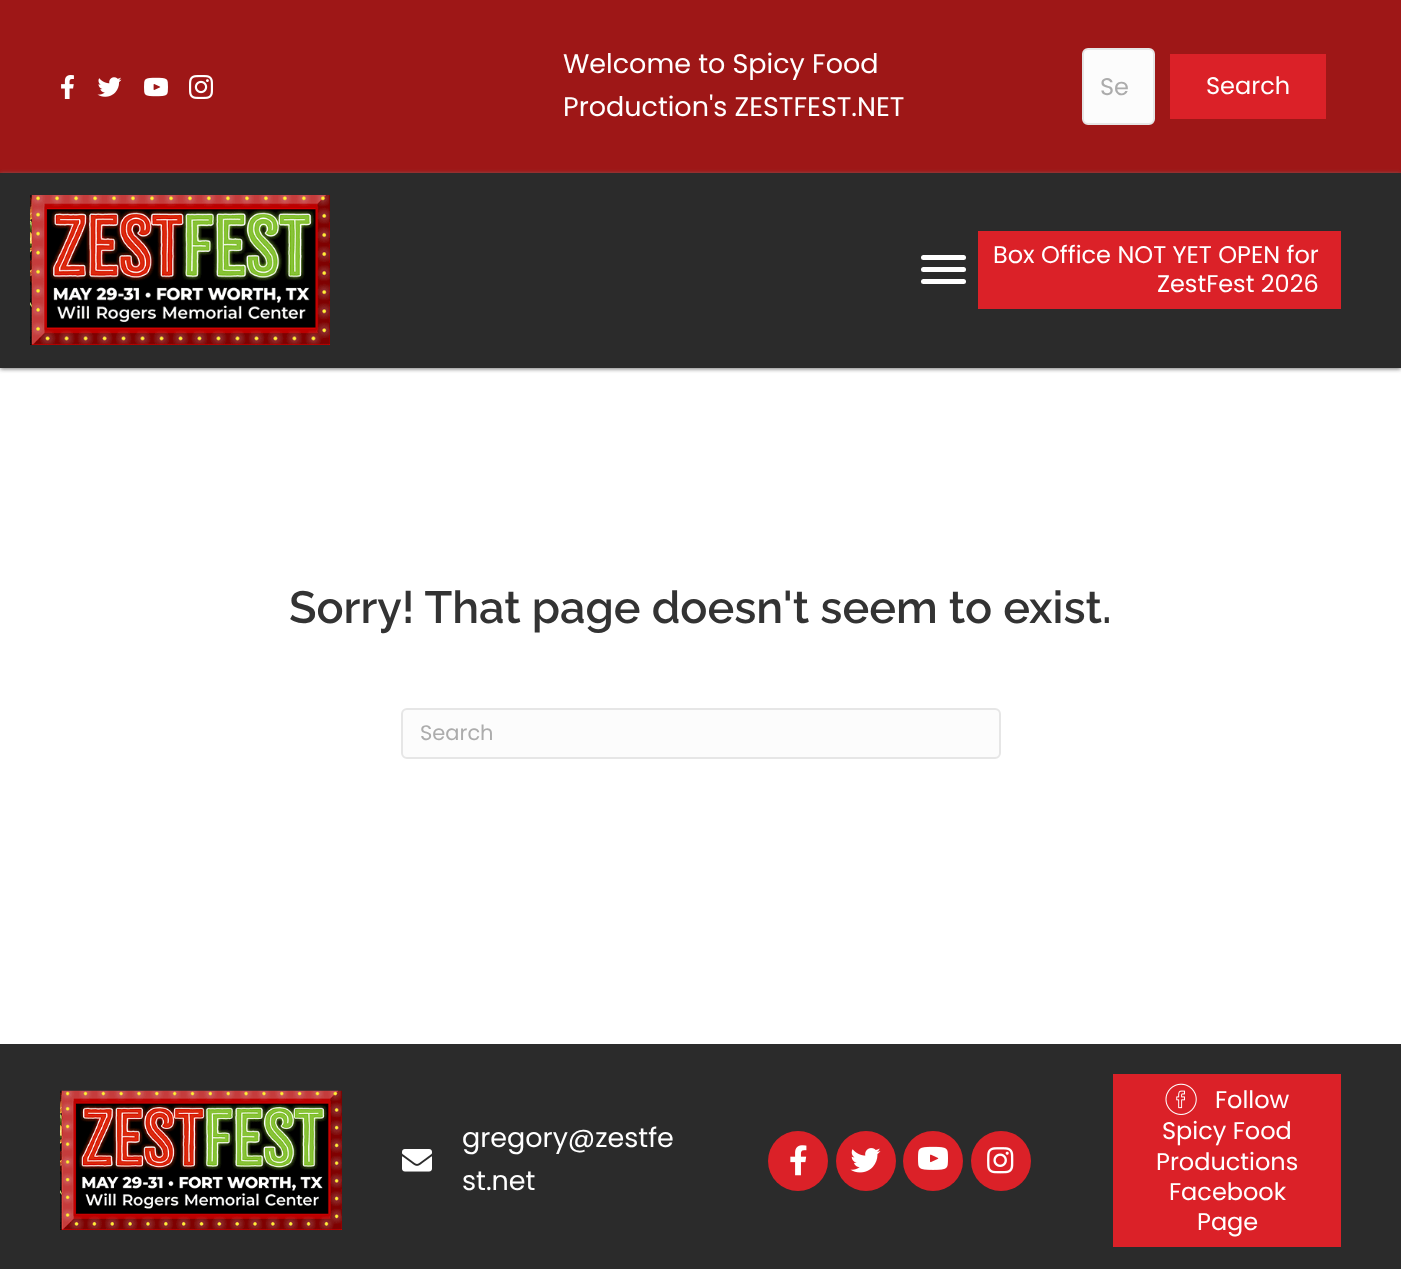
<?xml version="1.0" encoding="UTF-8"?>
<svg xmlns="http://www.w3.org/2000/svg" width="1401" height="1269">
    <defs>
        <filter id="blur1" x="-50%" y="-200%" width="200%" height="500%"><feGaussianBlur stdDeviation="2"/></filter>
    </defs>
    <rect width="100%" height="100%" fill="#FFFFFF"/>
    <rect x="0" y="0" width="1401" height="173" fill="#9E1717"/>
    <image x="61" y="75" width="13" height="24" href="img_01.png"/>
    <image x="97" y="77" width="25" height="20" href="img_02.png"/>
    <image x="144" y="77" width="24" height="20" href="img_03.png"/>
    <image x="189" y="75" width="24" height="24" href="img_04.png"/>
    <text font-family="Poppins" font-size="27" fill="#FFFFFF">
        <tspan x="563" y="73">Welcome to Spicy Food</tspan>
        <tspan x="563" y="116">Production's ZESTFEST.NET</tspan>
    </text>
    <rect x="1083" y="49" width="71" height="75" rx="5" fill="#FCFCFC" stroke="#E6E6E6" stroke-width="2"/>
    <text x="1100" y="95" font-family="Poppins" font-size="24" fill="#ACACAC">Se</text>
    <rect x="1170" y="54" width="156" height="65" fill="#DB2128"/>
    <text x="1206" y="94" font-family="Poppins" font-size="24" fill="#FFFFFF">Search</text>
    <rect x="0" y="174" width="1401" height="195" fill="#777777" filter="url(#blur1)"/>
    <rect x="0" y="173" width="1401" height="195" fill="#2B2B2B"/>
    <image x="30" y="195" width="300" height="150" href="img_05.png"/>
    <rect x="921" y="267" width="45" height="5" rx="2.5" fill="#FFFFFF"/>
    <rect x="921" y="255" width="45" height="5" rx="2.5" fill="#FFFFFF"/>
    <rect x="921" y="279" width="45" height="5" rx="2.5" fill="#FFFFFF"/>
    <rect x="978" y="231" width="363" height="78" fill="#DB2128"/>
    <text x="993" y="263" font-family="Poppins" font-size="24" fill="#FFFFFF">Box Office NOT YET OPEN for</text>
    <text x="1157" y="292" font-family="Poppins" font-size="24" fill="#FFFFFF">ZestFest 2026</text>
    <text x="289" y="623" font-family="Raleway" font-size="45" font-weight="100" fill="#333333">Sorry! That page doesn't seem to exist.</text>
    <rect x="402" y="709" width="598" height="49" rx="5" fill="#FCFCFC" stroke="#E6E6E6" stroke-width="2"/>
    <text x="420" y="740" font-family="Poppins" font-size="21" fill="#ACACAC">Search</text>
    <rect x="0" y="1044" width="1401" height="225" fill="#2B2B2B"/>
    <image x="60" y="1090" width="282" height="140" href="img_06.png"/>
    <image x="402" y="1149" width="30" height="23" href="img_07.png"/>
    <text font-family="Poppins" font-size="27" fill="#FFFFFF">
        <tspan x="462" y="1147">gregory@zestfe</tspan>
        <tspan x="462" y="1190">st.net</tspan>
    </text>
    <circle cx="798" cy="1161" r="30" fill="#DB2128"/>
    <image x="790" y="1145" width="17" height="31" href="img_08.png"/>
    <circle cx="866" cy="1161" r="30" fill="#DB2128"/>
    <image x="850" y="1148" width="31" height="25" href="img_09.png"/>
    <circle cx="933" cy="1161" r="30" fill="#DB2128"/>
    <image x="918" y="1146" width="30" height="24" href="img_10.png"/>
    <circle cx="1001" cy="1161" r="30" fill="#DB2128"/>
    <image x="987" y="1147" width="27" height="27" href="img_11.png"/>
    <rect x="1113" y="1074" width="228" height="173" fill="#DB2128"/>
    <image x="1165" y="1083" width="32" height="32" href="img_12.png"/>
    <text x="1215" y="1108" font-family="Poppins" font-size="24" fill="#FFFFFF">Follow</text>
    <text x="1162" y="1139" font-family="Poppins" font-size="24" fill="#FFFFFF">Spicy Food</text>
    <text x="1156" y="1170" font-family="Poppins" font-size="24" fill="#FFFFFF">Productions</text>
    <text x="1169" y="1200" font-family="Poppins" font-size="24" fill="#FFFFFF">Facebook</text>
    <text x="1197" y="1230" font-family="Poppins" font-size="24" fill="#FFFFFF">Page</text>
</svg>
